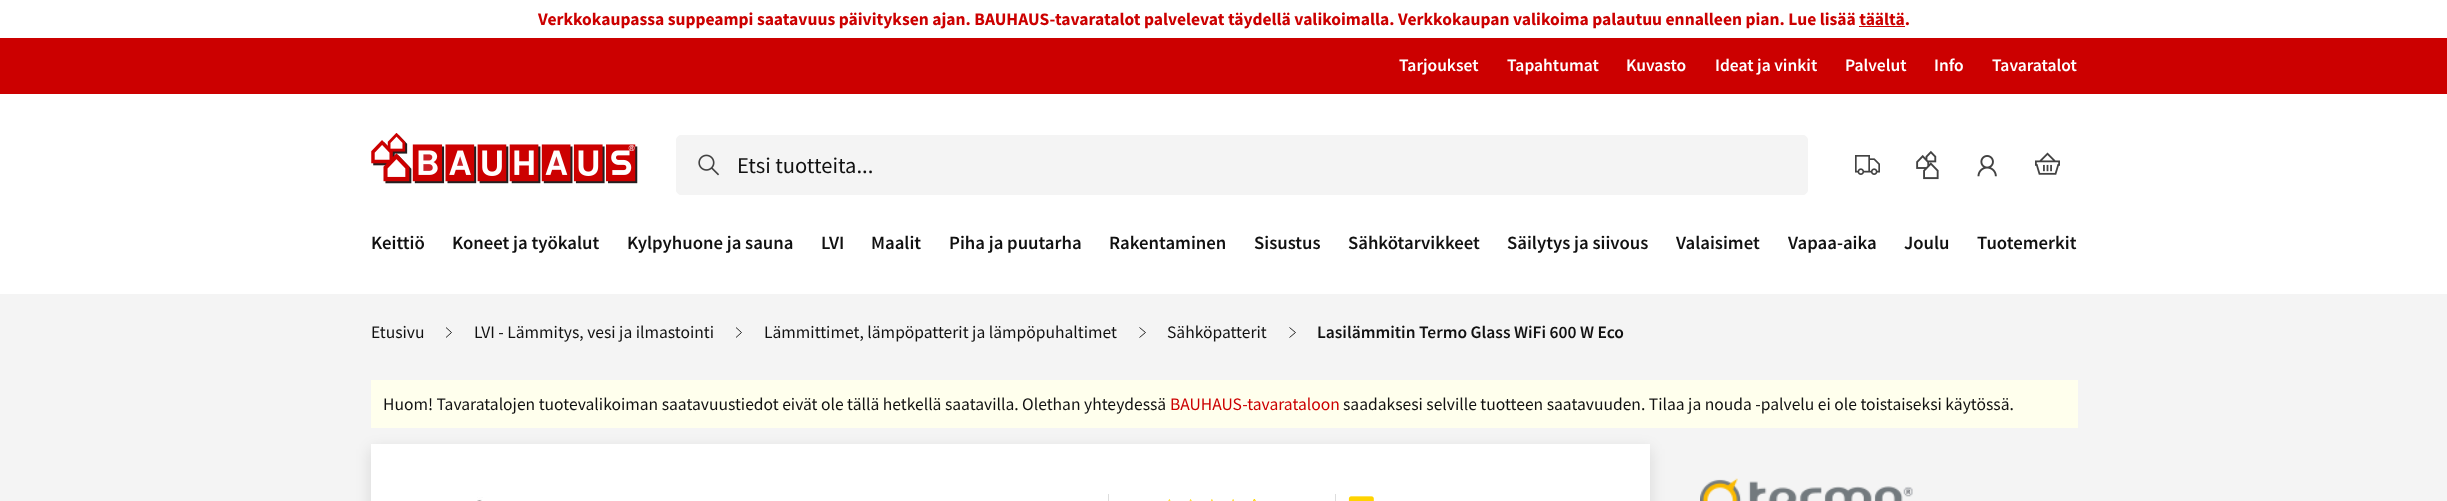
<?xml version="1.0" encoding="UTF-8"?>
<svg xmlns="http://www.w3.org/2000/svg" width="2447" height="501">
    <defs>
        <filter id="blur1" x="-50%" y="-200%" width="200%" height="500%"><feGaussianBlur stdDeviation="7.5"/></filter>
    </defs>
    <rect width="100%" height="100%" fill="#F4F4F4"/>
    <rect x="0" y="0" width="2447" height="38" fill="#FFFFFF"/>
    <text x="538" y="25" font-family="Source Sans Pro" font-size="17.5" font-weight="700" fill="#CC0000">Verkkokaupassa suppeampi saatavuus päivityksen ajan. BAUHAUS-tavaratalot palvelevat täydellä valikoimalla. Verkkokaupan valikoima palautuu ennalleen pian. Lue lisää täältä.</text>
    <rect x="1859" y="26" width="46" height="1" fill="#CC0000"/>
    <rect x="0" y="94" width="2447" height="200" fill="#FFFFFF"/>
    <rect x="0" y="38" width="2447" height="56" fill="#CC0000"/>
    <text x="1399" y="71" font-family="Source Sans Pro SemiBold" font-size="17.5" font-weight="600" fill="#FFFFFF">Tarjoukset</text>
    <text x="1507" y="71" font-family="Source Sans Pro SemiBold" font-size="17.5" font-weight="600" fill="#FFFFFF">Tapahtumat</text>
    <text x="1626" y="71" font-family="Source Sans Pro SemiBold" font-size="17.5" font-weight="600" fill="#FFFFFF">Kuvasto</text>
    <text x="1715" y="71" font-family="Source Sans Pro SemiBold" font-size="17.5" font-weight="600" fill="#FFFFFF">Ideat ja vinkit</text>
    <text x="1845" y="71" font-family="Source Sans Pro SemiBold" font-size="17.5" font-weight="600" fill="#FFFFFF">Palvelut</text>
    <text x="1934" y="71" font-family="Source Sans Pro SemiBold" font-size="17.5" font-weight="600" fill="#FFFFFF">Info</text>
    <text x="1992" y="71" font-family="Source Sans Pro SemiBold" font-size="17.5" font-weight="600" fill="#FFFFFF">Tavaratalot</text>
    <image x="371" y="133" width="267" height="51" href="img_01.png"/>
    <rect x="676.5" y="135.5" width="1131" height="59" rx="4.5" fill="#F4F4F4" stroke="#F4F4F4"/>
    <image x="698" y="154" width="22" height="22" href="img_02.png"/>
    <text x="737" y="173" font-family="Source Sans Pro" font-size="22.5" fill="#111111">Etsi tuotteita...</text>
    <image x="1855" y="155" width="25" height="20" href="img_03.png"/>
    <image x="1916" y="150" width="23" height="30" href="img_04.png"/>
    <image x="1977" y="155" width="20" height="22" href="img_05.png"/>
    <image x="2035" y="152" width="25" height="23" href="img_06.png"/>
    <text x="371" y="249" font-family="Source Sans Pro SemiBold" font-size="18.75" font-weight="600" fill="#111111">Keittiö</text>
    <text x="452" y="249" font-family="Source Sans Pro SemiBold" font-size="18.75" font-weight="600" fill="#111111">Koneet ja työkalut</text>
    <text x="627" y="249" font-family="Source Sans Pro SemiBold" font-size="18.75" font-weight="600" fill="#111111">Kylpyhuone ja sauna</text>
    <text x="821" y="249" font-family="Source Sans Pro SemiBold" font-size="18.75" font-weight="600" fill="#111111">LVI</text>
    <text x="871" y="249" font-family="Source Sans Pro SemiBold" font-size="18.75" font-weight="600" fill="#111111">Maalit</text>
    <text x="949" y="249" font-family="Source Sans Pro SemiBold" font-size="18.75" font-weight="600" fill="#111111">Piha ja puutarha</text>
    <text x="1109" y="249" font-family="Source Sans Pro SemiBold" font-size="18.75" font-weight="600" fill="#111111">Rakentaminen</text>
    <text x="1254" y="249" font-family="Source Sans Pro SemiBold" font-size="18.75" font-weight="600" fill="#111111">Sisustus</text>
    <text x="1348" y="249" font-family="Source Sans Pro SemiBold" font-size="18.75" font-weight="600" fill="#111111">Sähkötarvikkeet</text>
    <text x="1507" y="249" font-family="Source Sans Pro SemiBold" font-size="18.75" font-weight="600" fill="#111111">Säilytys ja siivous</text>
    <text x="1676" y="249" font-family="Source Sans Pro SemiBold" font-size="18.75" font-weight="600" fill="#111111">Valaisimet</text>
    <text x="1788" y="249" font-family="Source Sans Pro SemiBold" font-size="18.75" font-weight="600" fill="#111111">Vapaa-aika</text>
    <text x="1904" y="249" font-family="Source Sans Pro SemiBold" font-size="18.75" font-weight="600" fill="#111111">Joulu</text>
    <text x="1977" y="249" font-family="Source Sans Pro SemiBold" font-size="18.75" font-weight="600" fill="#111111">Tuotemerkit</text>
    <text x="371" y="338" font-family="Source Sans Pro" font-size="17.5" fill="#111111">Etusivu</text>
    <path d="M 446 337.5 L 451.5 332.5 L 446 327.5" fill="none" stroke="#111111" stroke-width="0.9"/>
    <text x="474" y="338" font-family="Source Sans Pro" font-size="17.5" fill="#111111">LVI - Lämmitys, vesi ja ilmastointi</text>
    <path d="M 736 337.5 L 741.5 332.5 L 736 327.5" fill="none" stroke="#111111" stroke-width="0.9"/>
    <text x="764" y="338" font-family="Source Sans Pro" font-size="17.5" fill="#111111">Lämmittimet, lämpöpatterit ja lämpöpuhaltimet</text>
    <path d="M 1139.5 337.5 L 1145.5 332.5 L 1139.5 327.5" fill="none" stroke="#111111" stroke-width="0.9"/>
    <text x="1167" y="338" font-family="Source Sans Pro" font-size="17.5" fill="#111111">Sähköpatterit</text>
    <path d="M 1289.5 337.5 L 1295.5 332.5 L 1289.5 327.5" fill="none" stroke="#111111" stroke-width="0.9"/>
    <text x="1317" y="338" font-family="Source Sans Pro SemiBold" font-size="17.5" font-weight="600" fill="#111111">Lasilämmitin Termo Glass WiFi 600 W Eco</text>
    <rect x="371" y="380" width="1707" height="48" fill="#FFFFED"/>
    <text x="383" y="410" font-family="Source Sans Pro" font-size="17.5" fill="#111111">Huom! Tavaratalojen tuotevalikoiman saatavuustiedot eivät ole tällä hetkellä saatavilla. Olethan yhteydessä</text>
    <text x="1170" y="410" font-family="Source Sans Pro" font-size="17.5" fill="#CC0000">BAUHAUS-tavarataloon</text>
    <text x="1343" y="410" font-family="Source Sans Pro" font-size="17.5" fill="#111111">saadaksesi selville tuotteen saatavuuden. Tilaa ja nouda -palvelu ei ole toistaiseksi käytössä.</text>
    <rect x="371" y="449" width="1279" height="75" fill="#000000" fill-opacity="0.12" filter="url(#blur1)"/>
    <rect x="371" y="444" width="1279" height="57" fill="#FFFFFF"/>
    <rect x="1108" y="494" width="1" height="7" fill="#DDDDDD"/>
    <image x="477" y="497" width="6" height="4" href="img_07.png"/>
    <image x="1168" y="499" width="88" height="2" href="img_08.png"/>
    <image x="1253" y="499" width="3" height="2" href="img_09.png"/>
    <rect x="1335" y="494" width="1" height="7" fill="#DDDDDD"/>
    <image x="1348" y="496" width="26" height="5" href="img_10.png"/>
    <image x="1700" y="478" width="213" height="23" href="img_11.png"/>
</svg>
